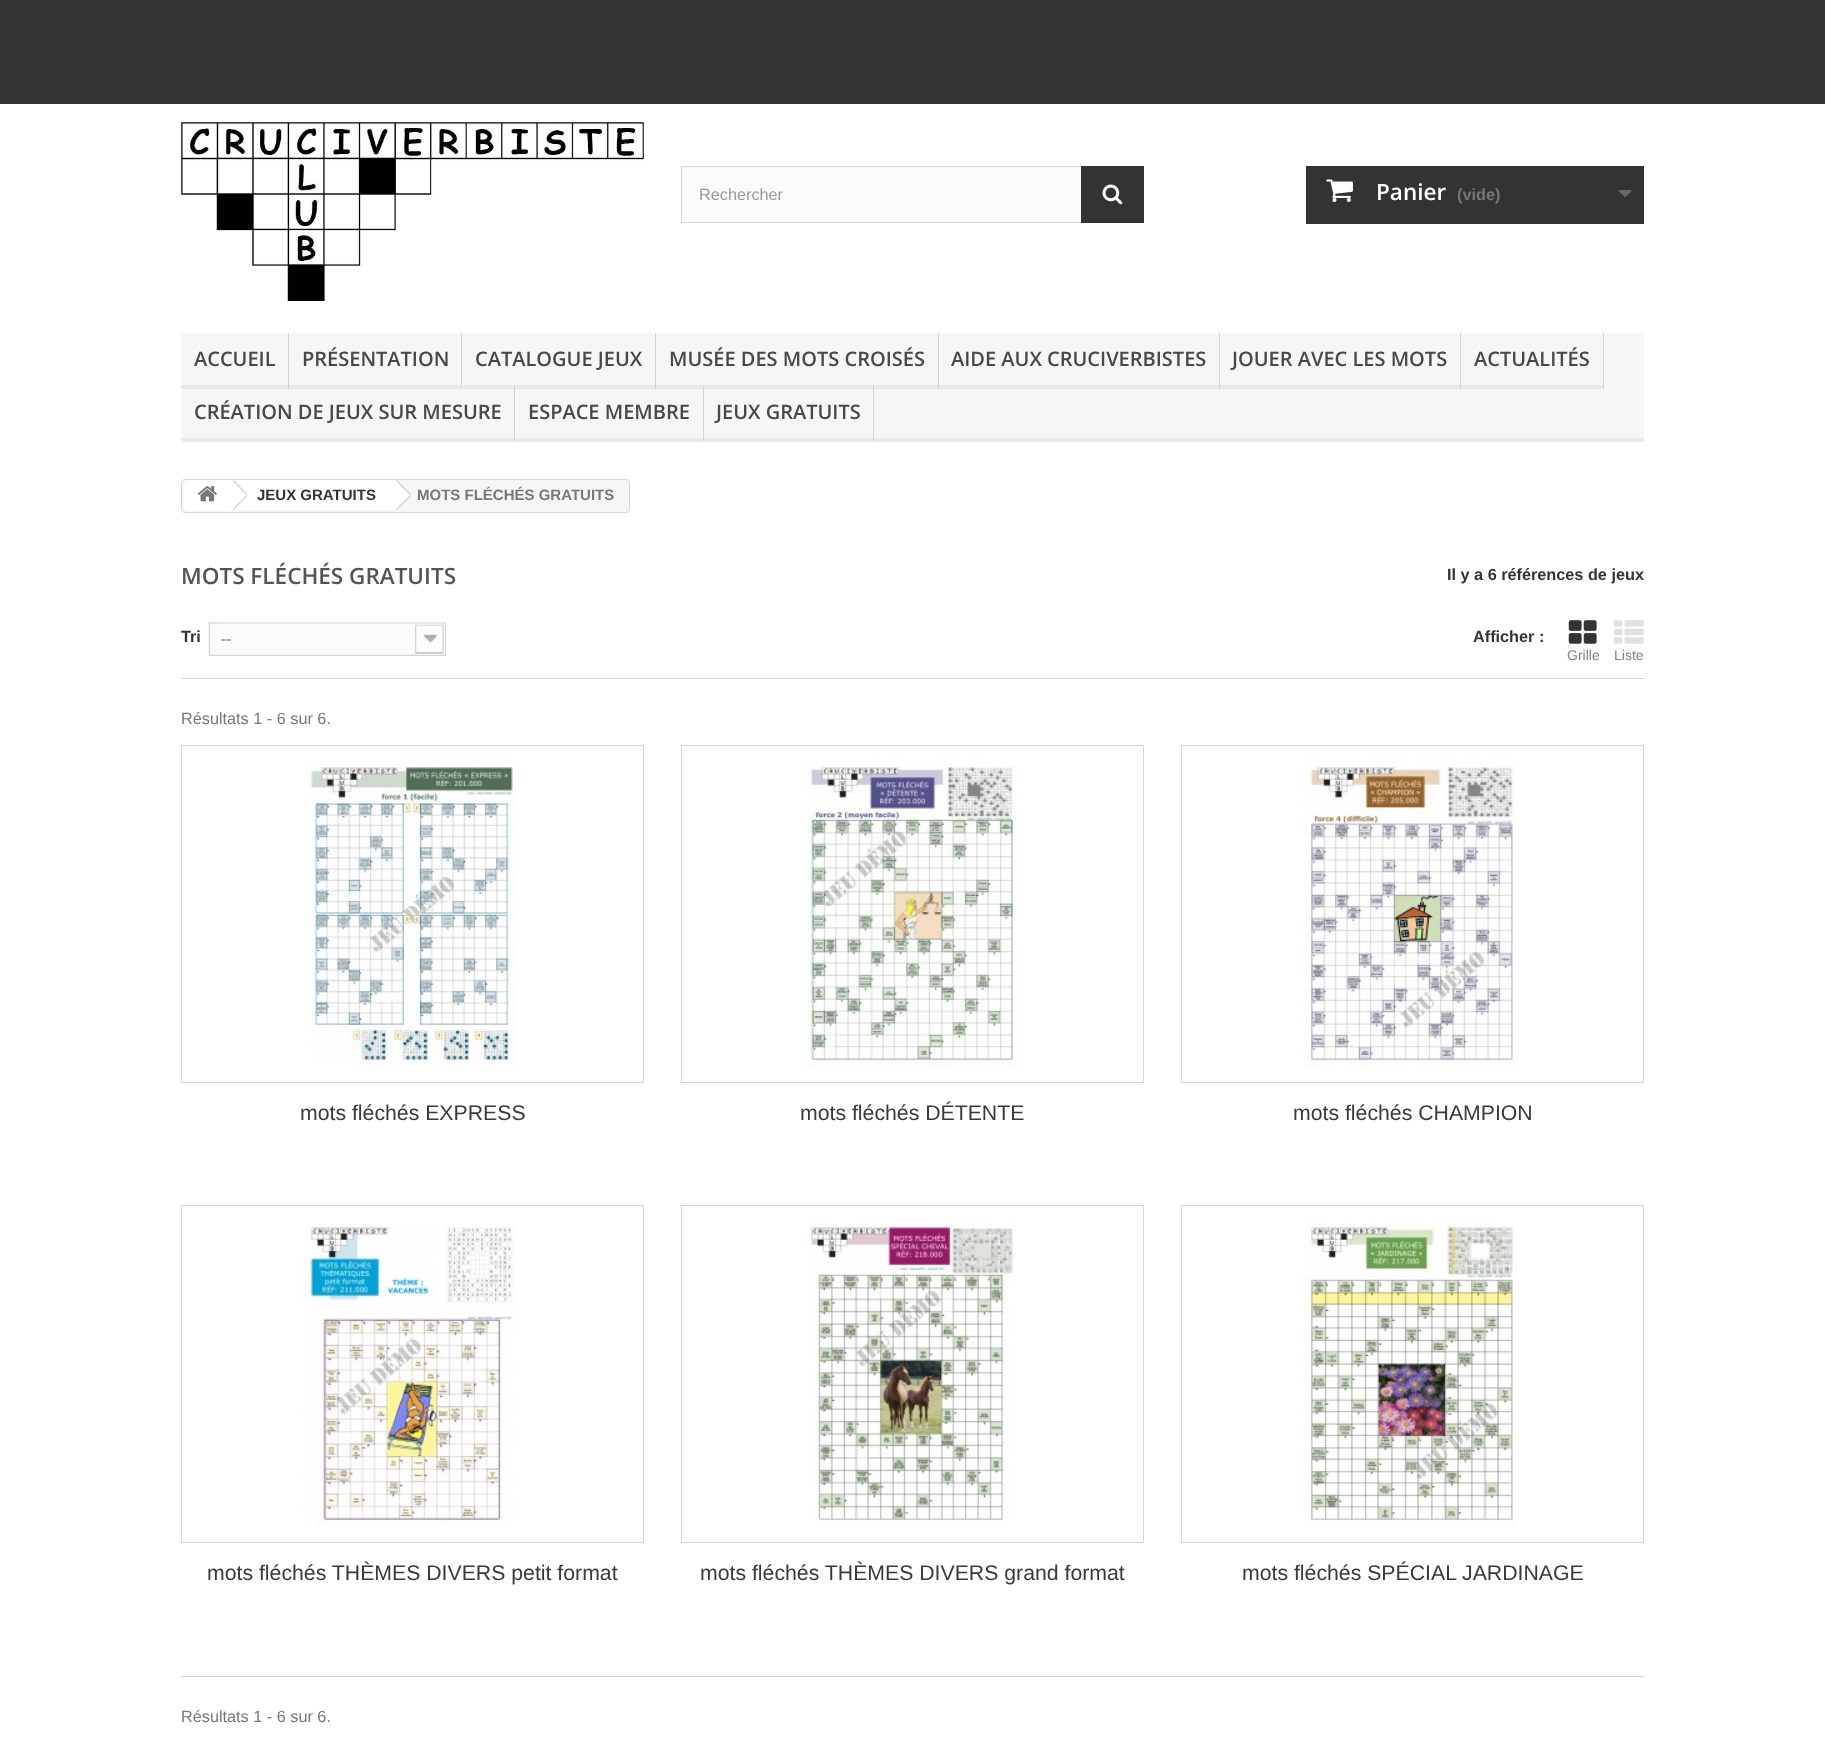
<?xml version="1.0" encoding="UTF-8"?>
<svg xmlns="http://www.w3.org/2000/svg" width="1825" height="1764">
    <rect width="100%" height="100%" fill="#FFFFFF"/>
    <rect x="0" y="0" width="1825" height="104" fill="#333333"/>
    <image x="181" y="122" width="463" height="179" href="img_01.png"/>
    <rect x="682" y="167" width="399" height="55" fill="#FBFBFB"/>
    <rect x="681.5" y="166.5" width="462" height="56" fill="none" stroke="#D6D4D4"/>
    <text x="699" y="200" font-family="Liberation Sans" font-size="16.25" fill="#999999">Rechercher</text>
    <rect x="1081" y="166" width="63" height="57" fill="#333333"/>
    <image x="1102" y="184" width="21" height="21" href="img_02.png"/>
    <rect x="1306" y="166" width="338" height="58" fill="#333333"/>
    <image x="1326" y="179" width="27" height="23" href="img_03.png"/>
    <text x="1376" y="200" font-family="Open Sans" font-size="22.5" font-weight="600" fill="#FFFFFF">Panier</text>
    <text x="1457" y="200" font-family="Liberation Sans" font-size="16.25" font-weight="700" fill="#777777">(vide)</text>
    <image x="1618" y="190" width="14" height="8" href="img_04.png"/>
    <rect x="181" y="333" width="1463" height="105" fill="#F6F6F6"/>
    <rect x="181" y="438" width="1463" height="4" fill="#E9E9E9"/>
    <rect x="288" y="333" width="1" height="56" fill="#D6D4D4"/>
    <rect x="181" y="385" width="107" height="4" fill="#E9E9E9"/>
    <text x="194" y="366" font-family="Open Sans" font-size="20" font-weight="600" fill="#484848">ACCUEIL</text>
    <rect x="461" y="333" width="1" height="56" fill="#D6D4D4"/>
    <rect x="289" y="385" width="172" height="4" fill="#E9E9E9"/>
    <text x="302" y="366" font-family="Open Sans" font-size="20" font-weight="600" fill="#484848">PRÉSENTATION</text>
    <rect x="655" y="333" width="1" height="56" fill="#D6D4D4"/>
    <rect x="463" y="385" width="192" height="4" fill="#E9E9E9"/>
    <text x="475" y="366" font-family="Open Sans" font-size="20" font-weight="600" fill="#484848">CATALOGUE JEUX</text>
    <rect x="938" y="333" width="1" height="56" fill="#D6D4D4"/>
    <rect x="656" y="385" width="282" height="4" fill="#E9E9E9"/>
    <text x="669" y="366" font-family="Open Sans" font-size="20" font-weight="600" fill="#484848">MUSÉE DES MOTS CROISÉS</text>
    <rect x="1219" y="333" width="1" height="56" fill="#D6D4D4"/>
    <rect x="939" y="385" width="280" height="4" fill="#E9E9E9"/>
    <text x="951" y="366" font-family="Open Sans" font-size="20" font-weight="600" fill="#484848">AIDE AUX CRUCIVERBISTES</text>
    <rect x="1460" y="333" width="1" height="56" fill="#D6D4D4"/>
    <rect x="1220" y="385" width="240" height="4" fill="#E9E9E9"/>
    <text x="1232" y="366" font-family="Open Sans" font-size="20" font-weight="600" fill="#484848">JOUER AVEC LES MOTS</text>
    <rect x="1603" y="333" width="1" height="56" fill="#D6D4D4"/>
    <rect x="1461" y="385" width="142" height="4" fill="#E9E9E9"/>
    <text x="1474" y="366" font-family="Open Sans" font-size="20" font-weight="600" fill="#484848">ACTUALITÉS</text>
    <rect x="514" y="385" width="1" height="56" fill="#D6D4D4"/>
    <text x="194" y="419" font-family="Open Sans" font-size="20" font-weight="600" fill="#484848">CRÉATION DE JEUX SUR MESURE</text>
    <rect x="703" y="385" width="1" height="56" fill="#D6D4D4"/>
    <text x="528" y="419" font-family="Open Sans" font-size="20" font-weight="600" fill="#484848">ESPACE MEMBRE</text>
    <rect x="873" y="385" width="1" height="56" fill="#D6D4D4"/>
    <text x="716" y="419" font-family="Open Sans" font-size="20" font-weight="600" fill="#484848">JEUX GRATUITS</text>
    <rect x="181.5" y="479.5" width="448" height="33" rx="3.5" fill="#F6F6F6" stroke="#D6D4D4"/>
    <path d="M 188 480 H 231 V 511 H 188 C 186 511 184 509 184 507 V 484 C 184 482 186 480 188 480 Z" fill="#FFFFFF"/>
    <image x="197" y="486" width="20" height="16" href="img_05.png"/>
    <rect x="231" y="480" width="164" height="30" fill="#FFFFFF"/>
    <path d="M 233.5 480 L 247.5 494 L 246.5 495 L 232.5 481 Z M 246.5 495 L 247.5 496 L 233.5 510 L 232.5 509 Z" fill="#D6D4D4"/>
    <text x="257" y="500" font-family="Liberation Sans" font-size="15" font-weight="700" fill="#333333">JEUX GRATUITS</text>
    <path d="M 398 481 L 410 493 C 411 494 411 495.5 410 496.5 L 398 509 C 397 510 395 510 394 509 L 382 496.5 C 381 495.5 381 494 382 493 L 394 481 C 395 480 397 480 398 481 Z" fill="#FFFFFF"/>
    <path d="M 397 480 L 411 494 L 410 495 L 396 481 Z M 410 495 L 411 496 L 397 510 L 396 509 Z" fill="#D6D4D4"/>
    <text x="417" y="500" font-family="Liberation Sans" font-size="15" font-weight="700" fill="#777777">MOTS FLÉCHÉS GRATUITS</text>
    <text x="181" y="584" font-family="Open Sans" font-size="22.5" font-weight="600" fill="#555454">MOTS FLÉCHÉS GRATUITS</text>
    <text x="1447" y="580" font-family="Liberation Sans" font-size="16.25" font-weight="700" fill="#333333">Il y a 6 références de jeux</text>
    <rect x="181" y="678" width="1463" height="1" fill="#D6D4D4"/>
    <text x="181" y="642" font-family="Liberation Sans" font-size="16.25" font-weight="700" fill="#333333">Tri</text>
    <image x="208" y="622" width="14" height="34" href="img_06.png"/>
    <image x="221" y="622" width="225" height="34" href="img_07.png"/>
    <text x="221" y="644" font-family="Liberation Sans" font-size="15" fill="#666666">--</text>
    <text x="1473" y="642" font-family="Liberation Sans" font-size="16.25" font-weight="700" fill="#333333">Afficher :</text>
    <image x="1568" y="620" width="29" height="24" href="img_08.png"/>
    <text x="1567" y="660" font-family="Liberation Sans" font-size="14" fill="#808080">Grille</text>
    <image x="1613" y="620" width="31" height="24" href="img_09.png"/>
    <text x="1614" y="660" font-family="Liberation Sans" font-size="14" fill="#808080">Liste</text>
    <text x="181" y="724" font-family="Liberation Sans" font-size="16.25" fill="#777777">Résultats 1 - 6 sur 6.</text>
    <rect x="181.5" y="745.5" width="462" height="337" fill="none" stroke="#D6D4D4"/>
    <image x="306" y="765" width="210" height="304" href="img_10.png"/>
    <text x="300" y="1120" font-family="Liberation Sans" font-size="21.25" fill="#3A3939">mots fléchés EXPRESS</text>
    <rect x="681.5" y="745.5" width="462" height="337" fill="none" stroke="#D6D4D4"/>
    <image x="806" y="758" width="211" height="309" href="img_11.png"/>
    <text x="800" y="1120" font-family="Liberation Sans" font-size="21.25" fill="#3A3939">mots fléchés DÉTENTE</text>
    <rect x="1181.5" y="745.5" width="462" height="337" fill="none" stroke="#D6D4D4"/>
    <image x="1299" y="757" width="217" height="310" href="img_12.png"/>
    <text x="1293" y="1120" font-family="Liberation Sans" font-size="21.25" fill="#3A3939">mots fléchés CHAMPION</text>
    <rect x="181.5" y="1205.5" width="462" height="337" fill="none" stroke="#D6D4D4"/>
    <image x="296" y="1227" width="220" height="300" href="img_13.png"/>
    <text x="207" y="1580" font-family="Liberation Sans" font-size="21.25" fill="#3A3939">mots fléchés THÈMES DIVERS petit format</text>
    <rect x="681.5" y="1205.5" width="462" height="337" fill="none" stroke="#D6D4D4"/>
    <image x="809" y="1217" width="207" height="310" href="img_14.png"/>
    <text x="700" y="1580" font-family="Liberation Sans" font-size="21.25" fill="#3A3939">mots fléchés THÈMES DIVERS grand format</text>
    <rect x="1181.5" y="1205.5" width="462" height="337" fill="none" stroke="#D6D4D4"/>
    <image x="1301" y="1217" width="216" height="310" href="img_15.png"/>
    <text x="1242" y="1580" font-family="Liberation Sans" font-size="21.25" fill="#3A3939">mots fléchés SPÉCIAL JARDINAGE</text>
    <rect x="181" y="1676" width="1463" height="1" fill="#D6D4D4"/>
    <text x="181" y="1722" font-family="Liberation Sans" font-size="16.25" fill="#777777">Résultats 1 - 6 sur 6.</text>
</svg>
